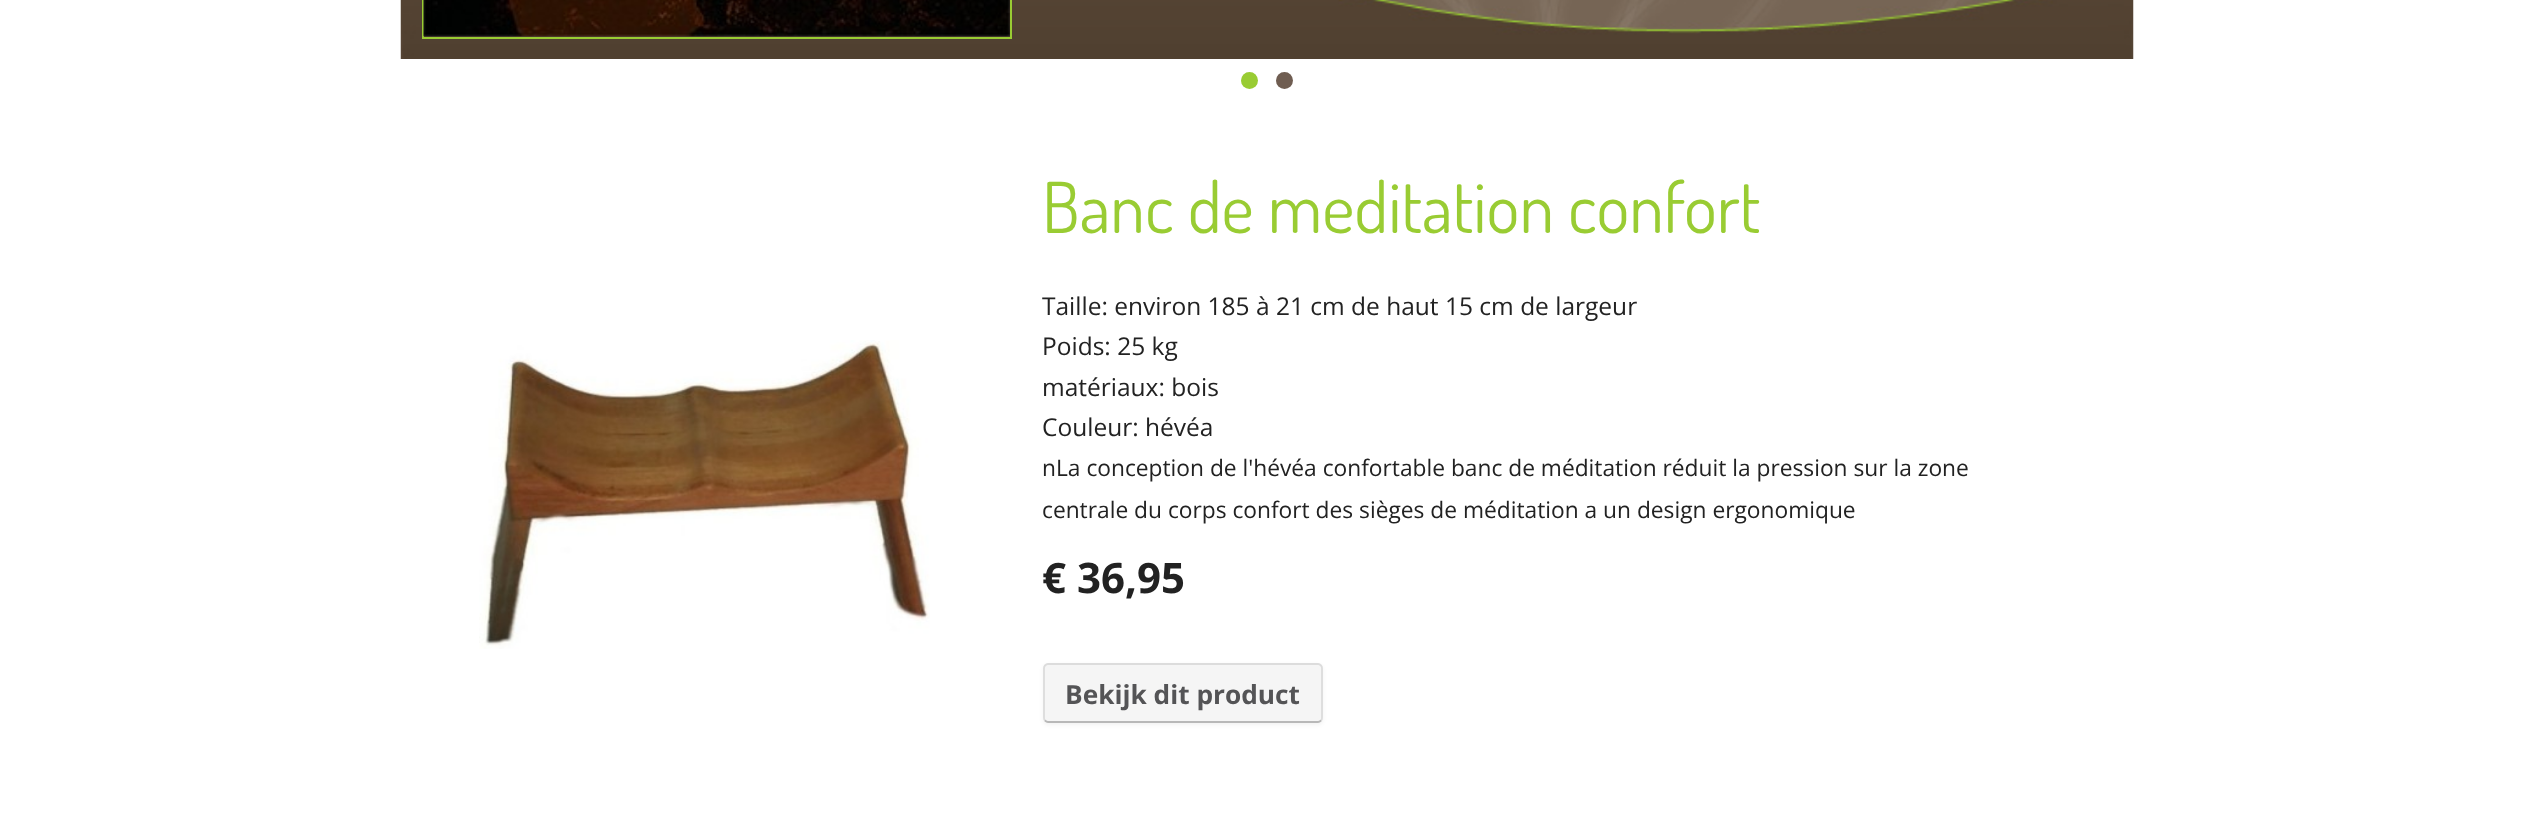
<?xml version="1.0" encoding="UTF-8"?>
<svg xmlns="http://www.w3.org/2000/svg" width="2531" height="837">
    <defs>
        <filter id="blur1" x="-50%" y="-200%" width="200%" height="500%"><feGaussianBlur stdDeviation="2"/></filter>
    </defs>
    <rect width="100%" height="100%" fill="#FFFFFF"/>
    <image x="400" y="0" width="1734" height="59" href="img_01.png"/>
    <rect x="423" y="-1" width="588" height="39" fill="none" stroke="#99CC33" stroke-width="2"/>
    <image x="423" y="0" width="587" height="37" href="img_02.png"/>
    <circle cx="1249.5" cy="80.5" r="8.5" fill="#99CC33"/>
    <circle cx="1284.5" cy="80.5" r="8.5" fill="#6F5D51"/>
    <image x="479" y="340" width="451" height="309" href="img_03.png"/>
    <text x="1042" y="233" font-family="Dosis" font-size="70" fill="#99CC33">Banc de meditation confort</text>
    <text font-family="Open Sans" font-size="24.5" fill="#222222">
        <tspan x="1042" y="315">Taille: environ 185 à 21 cm de haut 15 cm de largeur</tspan>
        <tspan x="1042" y="355">Poids: 25 kg</tspan>
        <tspan x="1042" y="396">matériaux: bois</tspan>
        <tspan x="1042" y="436">Couleur: hévéa</tspan>
    </text>
    <text font-family="Open Sans" font-size="22.75" fill="#222222">
        <tspan x="1042" y="476">nLa conception de l'hévéa confortable banc de méditation réduit la pression sur la zone</tspan>
        <tspan x="1042" y="518">centrale du corps confort des sièges de méditation a un design ergonomique</tspan>
    </text>
    <text x="1042" y="593" font-family="Open Sans" font-size="42" font-weight="700" fill="#222222">€ 36,95</text>
    <rect x="1043" y="665" width="280" height="60" rx="5" fill="#000000" fill-opacity="0.05" filter="url(#blur1)"/>
    <rect x="1043" y="663" width="280" height="60" rx="5" fill="#F5F5F5"/>
    <path d="M 1321 720.5 C 1320 721.5 1319 722 1318 722 H 1048 C 1047 722 1046 721.5 1045 720.5" fill="none" stroke="#B8B8B8" stroke-width="1.8"/>
    <path d="M 1045 720.5 C 1044.5 720 1044 718.5 1044 717.5 V 668.5 C 1044 667.5 1044.5 666 1045 665.5 C 1046 664.5 1047 664 1048 664 H 1318 C 1319 664 1320 664.5 1321 665.5 C 1321.5 666 1322 667.5 1322 668.5 V 717.5 C 1322 718.5 1321.5 720 1321 720.5" fill="none" stroke="#000000" stroke-opacity="0.1" stroke-width="1.8"/>
    <text x="1065" y="704" font-family="Open Sans" font-size="26.25" font-weight="700" fill="#545456">Bekijk dit product</text>
</svg>
